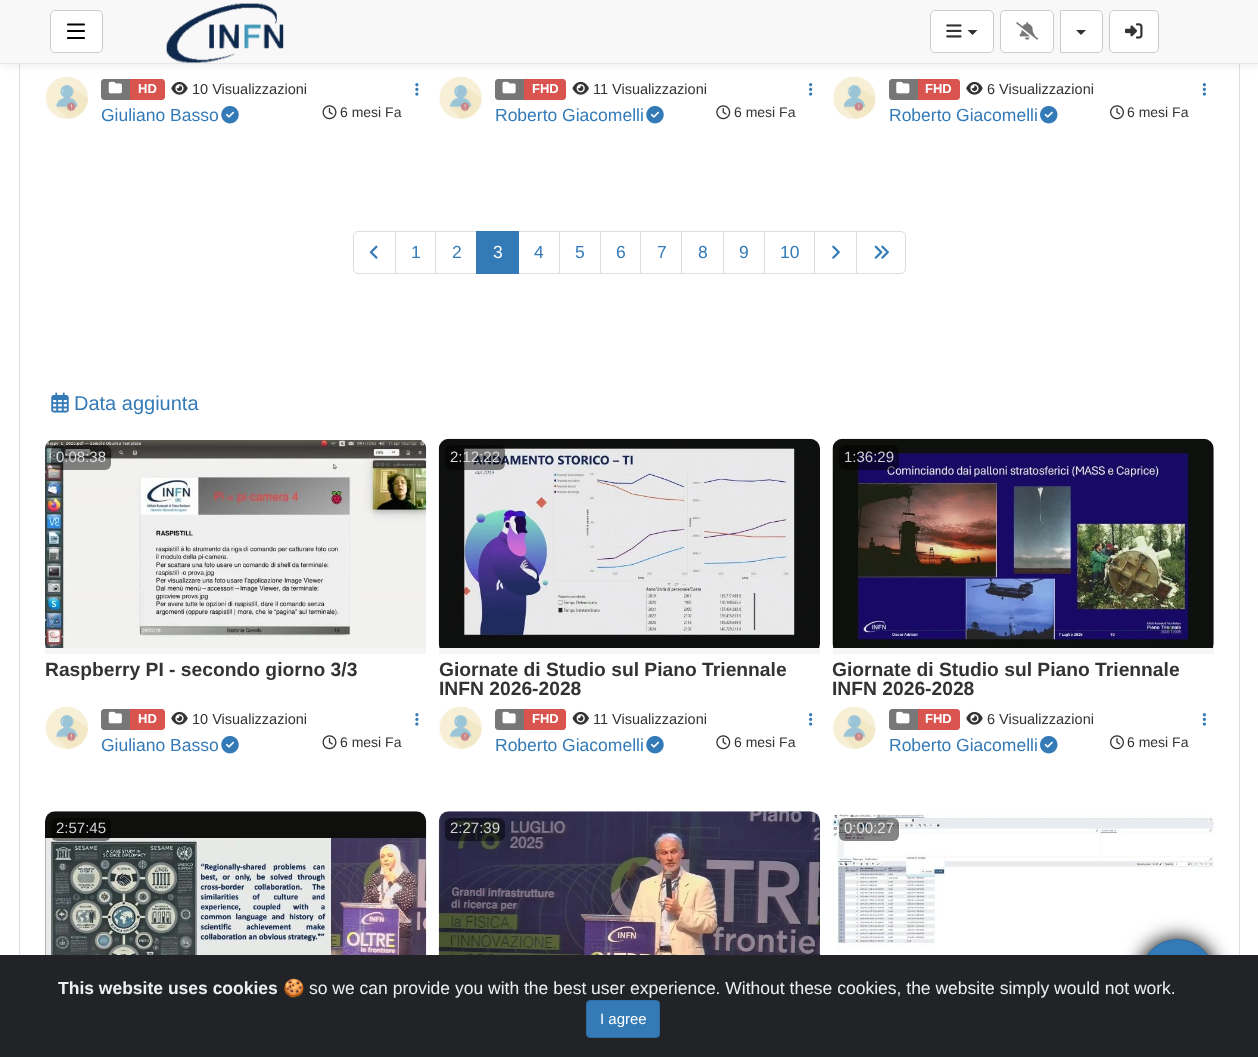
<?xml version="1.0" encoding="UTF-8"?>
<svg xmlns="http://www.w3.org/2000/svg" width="1258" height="1057">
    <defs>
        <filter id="blur1" x="-50%" y="-200%" width="200%" height="500%"><feGaussianBlur stdDeviation="5"/></filter>
        <filter id="blur2" x="-50%" y="-200%" width="200%" height="500%"><feGaussianBlur stdDeviation="9.5"/></filter>
    </defs>
    <rect width="100%" height="100%" fill="#FFFFFF"/>
    <rect x="19.5" y="-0.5" width="1220" height="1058" fill="none" stroke="#DDDDDD"/>
    <image x="45" y="76" width="44" height="43" href="img_05.png"/>
    <path d="M 104 79 H 130 V 100 H 104 C 102.5 100 101 98.5 101 97 V 82 C 101 80.5 102.5 79 104 79 Z" fill="#777777"/>
    <path d="M 130 79 H 162 C 163.5 79 165 80.5 165 82 V 97 C 165 98.5 163.5 100 162 100 H 130 Z" fill="#D9534F"/>
    <image x="439" y="76" width="43" height="43" href="img_11.png"/>
    <path d="M 498 79 H 524 V 100 H 498 C 496.5 100 495 98.5 495 97 V 82 C 495 80.5 496.5 79 498 79 Z" fill="#777777"/>
    <path d="M 524 79 H 563 C 564.5 79 566 80.5 566 82 V 97 C 566 98.5 564.5 100 563 100 H 524 Z" fill="#D9534F"/>
    <image x="833" y="76" width="43" height="43" href="img_16.png"/>
    <path d="M 892 79 H 918 V 100 H 892 C 890.5 100 889 98.5 889 97 V 82 C 889 80.5 890.5 79 892 79 Z" fill="#777777"/>
    <path d="M 918 79 H 957 C 958.5 79 960 80.5 960 82 V 97 C 960 98.5 958.5 100 957 100 H 918 Z" fill="#D9534F"/>
    <rect x="0" y="1" width="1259" height="64" fill="#000000" fill-opacity="0.08" filter="url(#blur1)"/>
    <rect x="0" y="0" width="1258" height="63" fill="#F8F8F8"/>
    <rect x="0" y="63" width="1258" height="1" fill="#E7E7E7"/>
    <rect x="50.5" y="10.5" width="52" height="42" rx="4.5" fill="#FFFFFF" stroke="#CCCCCC"/>
    <path d="M 68 24.5 H 84 M 68 31 H 84 M 68 38 H 84" fill="none" stroke="#000000" stroke-width="2.2" stroke-linecap="round"/>
    <image x="166" y="3" width="118" height="60" href="img_01.png"/>
    <rect x="930.5" y="10.5" width="63" height="42" rx="4.5" fill="#FFFFFF" stroke="#CCCCCC"/>
    <image x="946" y="24" width="16" height="14" href="img_02.png"/>
    <path d="M 967.5 30 H 977.5 L 972.5 35 Z" fill="#333333"/>
    <rect x="1000.5" y="10.5" width="53" height="42" rx="4.5" fill="#FFFFFF" stroke="#CCCCCC"/>
    <image x="1016" y="22" width="23" height="18" href="img_03.png"/>
    <path d="M 1060.5 10.5 H 1098 C 1100.5 10.5 1102.5 12.5 1102.5 15 V 48 C 1102.5 50.5 1100.5 52.5 1098 52.5 H 1060.5 Z" fill="#FFFFFF" stroke="#CCCCCC"/>
    <path d="M 1076 30 H 1086 L 1081 35 Z" fill="#333333"/>
    <rect x="1109.5" y="10.5" width="49" height="42" rx="4.5" fill="#FFFFFF" stroke="#CCCCCC"/>
    <image x="1125" y="23" width="18" height="16" href="img_04.png"/>
    <image x="108" y="81" width="14" height="13" href="img_06.png"/>
    <text x="138" y="93" font-family="Liberation Sans" font-size="13" font-weight="700" fill="#FFFFFF">HD</text>
    <image x="171" y="81" width="17" height="14" href="img_07.png"/>
    <text x="192" y="94" font-family="Liberation Sans" font-size="14.5" fill="#333333">10 Visualizzazioni</text>
    <text x="101" y="121" font-family="Liberation Sans" font-size="17.5" fill="#337AB7">Giuliano Basso</text>
    <image x="221" y="106" width="18" height="18" href="img_08.png"/>
    <image x="322" y="105" width="15" height="15" href="img_09.png"/>
    <text x="340" y="117" font-family="Liberation Sans" font-size="14" fill="#333333">6 mesi Fa</text>
    <image x="415" y="83" width="4" height="13" href="img_10.png"/>
    <image x="502" y="81" width="14" height="13" href="img_12.png"/>
    <text x="532" y="93" font-family="Liberation Sans" font-size="13" font-weight="700" fill="#FFFFFF">FHD</text>
    <image x="572" y="81" width="17" height="14" href="img_13.png"/>
    <text x="593" y="94" font-family="Liberation Sans" font-size="14.5" fill="#333333">11 Visualizzazioni</text>
    <text x="495" y="121" font-family="Liberation Sans" font-size="17.5" fill="#337AB7">Roberto Giacomelli</text>
    <image x="646" y="106" width="18" height="18" href="img_08.png"/>
    <image x="716" y="105" width="15" height="15" href="img_14.png"/>
    <text x="734" y="117" font-family="Liberation Sans" font-size="14" fill="#333333">6 mesi Fa</text>
    <image x="809" y="83" width="4" height="13" href="img_15.png"/>
    <image x="896" y="81" width="14" height="13" href="img_17.png"/>
    <text x="925" y="93" font-family="Liberation Sans" font-size="13" font-weight="700" fill="#FFFFFF">FHD</text>
    <image x="966" y="81" width="17" height="14" href="img_07.png"/>
    <text x="987" y="94" font-family="Liberation Sans" font-size="14.5" fill="#333333">6 Visualizzazioni</text>
    <text x="889" y="121" font-family="Liberation Sans" font-size="17.5" fill="#337AB7">Roberto Giacomelli</text>
    <image x="1040" y="105" width="18" height="19" href="img_18.png"/>
    <image x="1110" y="105" width="14" height="15" href="img_19.png"/>
    <text x="1127" y="117" font-family="Liberation Sans" font-size="14" fill="#333333">6 mesi Fa</text>
    <image x="1202" y="83" width="4" height="13" href="img_20.png"/>
    <path d="M 358 231.5 H 395.5 V 273.5 H 358 C 355.5 273.5 353.5 271.5 353.5 269 V 236 C 353.5 233.5 355.5 231.5 358 231.5 Z" fill="none" stroke="#DDDDDD"/>
    <image x="369" y="245" width="9" height="14" href="img_21.png"/>
    <rect x="395.5" y="231.5" width="40" height="42" fill="none" stroke="#DDDDDD"/>
    <text x="411" y="258" font-family="Liberation Sans" font-size="17.5" fill="#337AB7">1</text>
    <rect x="435.5" y="231.5" width="42" height="42" fill="none" stroke="#DDDDDD"/>
    <text x="452" y="258" font-family="Liberation Sans" font-size="17.5" fill="#337AB7">2</text>
    <rect x="518.5" y="231.5" width="41" height="42" fill="none" stroke="#DDDDDD"/>
    <rect x="476" y="231" width="43" height="43" fill="#337AB7"/>
    <text x="493" y="258" font-family="Liberation Sans" font-size="17.5" fill="#FFFFFF">3</text>
    <text x="534" y="258" font-family="Liberation Sans" font-size="17.5" fill="#337AB7">4</text>
    <rect x="559.5" y="231.5" width="41" height="42" fill="none" stroke="#DDDDDD"/>
    <text x="575" y="258" font-family="Liberation Sans" font-size="17.5" fill="#337AB7">5</text>
    <rect x="600.5" y="231.5" width="40" height="42" fill="none" stroke="#DDDDDD"/>
    <text x="616" y="258" font-family="Liberation Sans" font-size="17.5" fill="#337AB7">6</text>
    <rect x="640.5" y="231.5" width="42" height="42" fill="none" stroke="#DDDDDD"/>
    <text x="657" y="258" font-family="Liberation Sans" font-size="17.5" fill="#337AB7">7</text>
    <rect x="682" y="232" width="1" height="41" fill="#FFFFFF"/>
    <rect x="681.5" y="231.5" width="42" height="42" fill="none" stroke="#DDDDDD"/>
    <text x="698" y="258" font-family="Liberation Sans" font-size="17.5" fill="#337AB7">8</text>
    <rect x="723.5" y="231.5" width="41" height="42" fill="none" stroke="#DDDDDD"/>
    <text x="739" y="258" font-family="Liberation Sans" font-size="17.5" fill="#337AB7">9</text>
    <rect x="764.5" y="231.5" width="50" height="42" fill="none" stroke="#DDDDDD"/>
    <text x="780" y="258" font-family="Liberation Sans" font-size="17.5" fill="#337AB7">10</text>
    <rect x="814.5" y="231.5" width="43" height="42" fill="none" stroke="#DDDDDD"/>
    <image x="832" y="245" width="8" height="14" href="img_22.png"/>
    <path d="M 856.5 231.5 H 901 C 903.5 231.5 905.5 233.5 905.5 236 V 269 C 905.5 271.5 903.5 273.5 901 273.5 H 856.5 Z" fill="#FFFFFF" stroke="#DDDDDD"/>
    <image x="874" y="245" width="15" height="14" href="img_23.png"/>
    <image x="51" y="392" width="18" height="21" href="img_24.png"/>
    <text x="74" y="410" font-family="Liberation Sans" font-size="20" fill="#337AB7">Data aggiunta</text>
    <image x="45" y="440" width="382" height="208" href="img_25.png"/>
    <rect x="51" y="445" width="60" height="25" rx="6" fill="#000000" fill-opacity="0.48"/>
    <text x="56" y="462" font-family="Liberation Sans" font-size="15" fill="#DBDBDC">0:08:38</text>
    <rect x="45" y="648" width="381" height="6" fill="#F5F5F5"/>
    <text x="45" y="676" font-family="Liberation Sans" font-size="19.25" font-weight="700" fill="#333333">Raspberry PI - secondo giorno 3/3</text>
    <image x="45" y="706" width="44" height="43" href="img_26.png"/>
    <path d="M 104 709 H 130 V 730 H 104 C 102.5 730 101 728.5 101 727 V 712 C 101 710.5 102.5 709 104 709 Z" fill="#777777"/>
    <image x="108" y="711" width="14" height="13" href="img_06.png"/>
    <path d="M 130 709 H 162 C 163.5 709 165 710.5 165 712 V 727 C 165 728.5 163.5 730 162 730 H 130 Z" fill="#D9534F"/>
    <text x="138" y="723" font-family="Liberation Sans" font-size="13" font-weight="700" fill="#FFFFFF">HD</text>
    <image x="171" y="711" width="17" height="14" href="img_07.png"/>
    <text x="192" y="724" font-family="Liberation Sans" font-size="14.5" fill="#333333">10 Visualizzazioni</text>
    <text x="101" y="751" font-family="Liberation Sans" font-size="17.5" fill="#337AB7">Giuliano Basso</text>
    <image x="221" y="736" width="18" height="18" href="img_08.png"/>
    <image x="322" y="735" width="15" height="15" href="img_09.png"/>
    <text x="340" y="747" font-family="Liberation Sans" font-size="14" fill="#333333">6 mesi Fa</text>
    <image x="415" y="713" width="4" height="13" href="img_10.png"/>
    <image x="438" y="438" width="382" height="210" href="img_27.png"/>
    <rect x="445" y="445" width="60" height="25" rx="6" fill="#000000" fill-opacity="0.48"/>
    <text x="450" y="462" font-family="Liberation Sans" font-size="15" fill="#DBDBDC">2:12:22</text>
    <rect x="439" y="648" width="381" height="6" fill="#F5F5F5"/>
    <text font-family="Liberation Sans" font-size="19.25" font-weight="700" fill="#333333">
        <tspan x="439" y="676">Giornate di Studio sul Piano Triennale</tspan>
        <tspan x="439" y="695">INFN 2026-2028</tspan>
    </text>
    <image x="439" y="706" width="43" height="43" href="img_28.png"/>
    <path d="M 498 709 H 524 V 730 H 498 C 496.5 730 495 728.5 495 727 V 712 C 495 710.5 496.5 709 498 709 Z" fill="#777777"/>
    <image x="502" y="711" width="14" height="13" href="img_12.png"/>
    <path d="M 524 709 H 563 C 564.5 709 566 710.5 566 712 V 727 C 566 728.5 564.5 730 563 730 H 524 Z" fill="#D9534F"/>
    <text x="532" y="723" font-family="Liberation Sans" font-size="13" font-weight="700" fill="#FFFFFF">FHD</text>
    <image x="572" y="711" width="17" height="14" href="img_13.png"/>
    <text x="593" y="724" font-family="Liberation Sans" font-size="14.5" fill="#333333">11 Visualizzazioni</text>
    <text x="495" y="751" font-family="Liberation Sans" font-size="17.5" fill="#337AB7">Roberto Giacomelli</text>
    <image x="646" y="736" width="18" height="18" href="img_08.png"/>
    <image x="716" y="735" width="15" height="15" href="img_14.png"/>
    <text x="734" y="747" font-family="Liberation Sans" font-size="14" fill="#333333">6 mesi Fa</text>
    <image x="809" y="713" width="4" height="13" href="img_15.png"/>
    <image x="832" y="438" width="382" height="210" href="img_29.png"/>
    <rect x="839" y="445" width="60" height="25" rx="6" fill="#000000" fill-opacity="0.48"/>
    <text x="844" y="462" font-family="Liberation Sans" font-size="15" fill="#CECDD3">1:36:29</text>
    <rect x="833" y="648" width="381" height="6" fill="#F5F5F5"/>
    <text font-family="Liberation Sans" font-size="19.25" font-weight="700" fill="#333333">
        <tspan x="832" y="676">Giornate di Studio sul Piano Triennale</tspan>
        <tspan x="832" y="695">INFN 2026-2028</tspan>
    </text>
    <image x="833" y="706" width="43" height="43" href="img_30.png"/>
    <path d="M 892 709 H 918 V 730 H 892 C 890.5 730 889 728.5 889 727 V 712 C 889 710.5 890.5 709 892 709 Z" fill="#777777"/>
    <image x="896" y="711" width="14" height="13" href="img_17.png"/>
    <path d="M 918 709 H 957 C 958.5 709 960 710.5 960 712 V 727 C 960 728.5 958.5 730 957 730 H 918 Z" fill="#D9534F"/>
    <text x="925" y="723" font-family="Liberation Sans" font-size="13" font-weight="700" fill="#FFFFFF">FHD</text>
    <image x="966" y="711" width="17" height="14" href="img_07.png"/>
    <text x="987" y="724" font-family="Liberation Sans" font-size="14.5" fill="#333333">6 Visualizzazioni</text>
    <text x="889" y="751" font-family="Liberation Sans" font-size="17.5" fill="#337AB7">Roberto Giacomelli</text>
    <image x="1040" y="735" width="18" height="19" href="img_18.png"/>
    <image x="1110" y="735" width="14" height="15" href="img_19.png"/>
    <text x="1127" y="747" font-family="Liberation Sans" font-size="14" fill="#333333">6 mesi Fa</text>
    <image x="1202" y="713" width="4" height="13" href="img_20.png"/>
    <image x="45" y="811" width="382" height="144" href="img_31.png"/>
    <rect x="51" y="818" width="60" height="23" rx="6" fill="#000000" fill-opacity="0.48"/>
    <text x="56" y="833" font-family="Liberation Sans" font-size="15" fill="#D2D3D3">2:57:45</text>
    <image x="438" y="811" width="382" height="144" href="img_32.png"/>
    <rect x="445" y="818" width="60" height="23" rx="6" fill="#000000" fill-opacity="0.48"/>
    <text x="450" y="833" font-family="Liberation Sans" font-size="15" fill="#D2D3D3">2:27:39</text>
    <image x="832" y="813" width="382" height="142" href="img_33.png"/>
    <rect x="839" y="818" width="60" height="23" rx="6" fill="#000000" fill-opacity="0.48"/>
    <text x="844" y="833" font-family="Liberation Sans" font-size="15" fill="#E4E4E4">0:00:27</text>
    <rect x="1139" y="938" width="77" height="77" rx="38.5" fill="#000000" filter="url(#blur2)"/>
    <circle cx="1177.5" cy="976.5" r="37" fill="#337AB7" stroke="#2E6DA4"/>
    <rect x="0" y="955" width="1258" height="102" fill="#212327"/>
    <text x="58" y="994" font-family="Liberation Sans" font-size="17.5" font-weight="700" fill="#ECF0F1">This website uses cookies</text>
    <text x="283" y="994" font-family="Noto Color Emoji" font-size="17.5" fill="#ECF0F1">🍪</text>
    <text x="309" y="994" font-family="Liberation Sans" font-size="17.5" fill="#ECF0F1">so we can provide you with the best user experience. Without these cookies, the website simply would not work.</text>
    <rect x="586.5" y="1000.5" width="73" height="37" rx="3.5" fill="#337AB7" stroke="#2E6DA4"/>
    <text x="600" y="1024" font-family="Liberation Sans" font-size="15" fill="#FFFFFF">I agree</text>
</svg>
